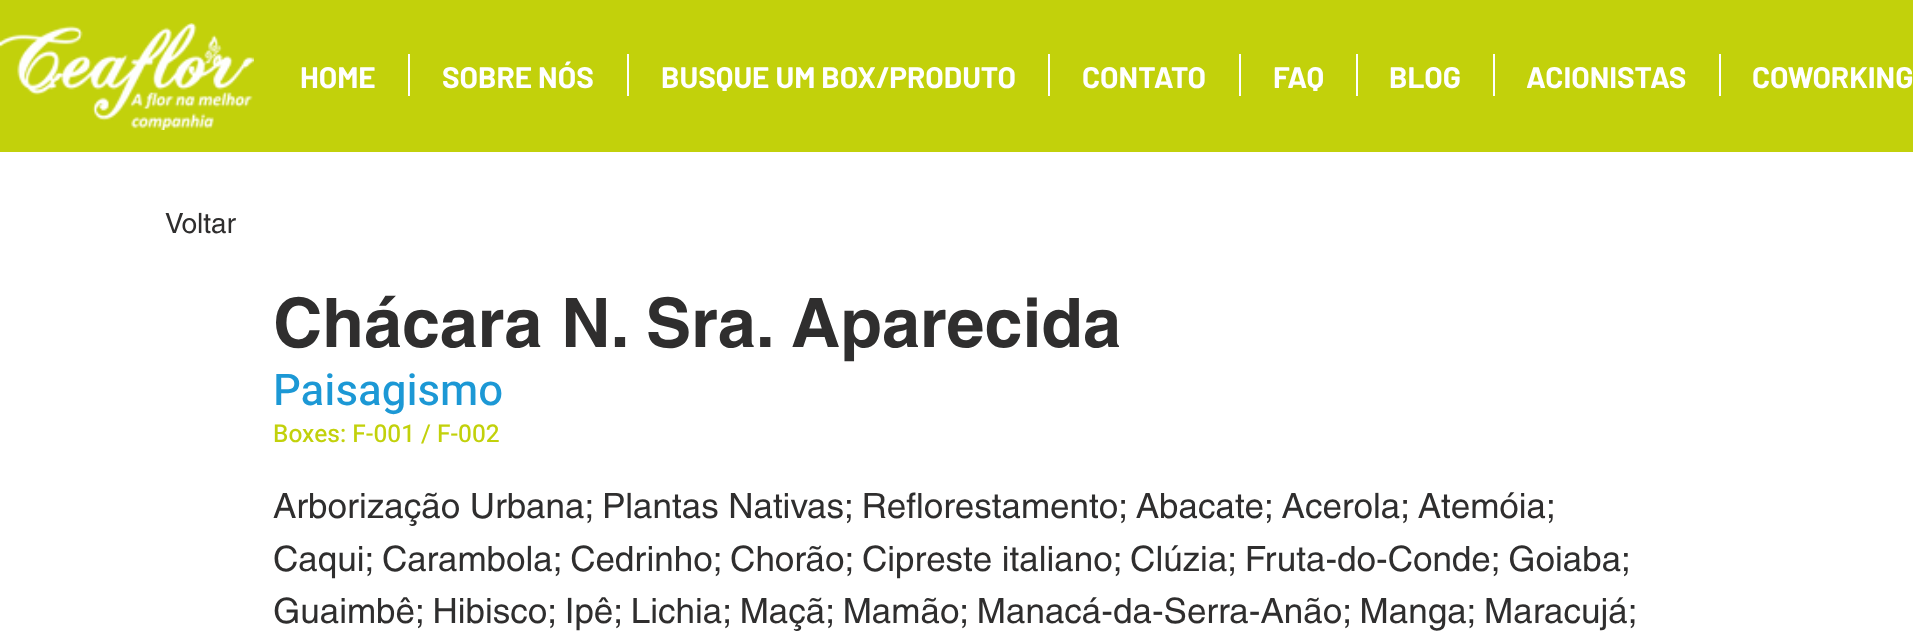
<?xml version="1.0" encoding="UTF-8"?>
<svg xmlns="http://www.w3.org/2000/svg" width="1913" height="638">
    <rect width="100%" height="100%" fill="#FFFFFF"/>
    <rect x="0" y="0" width="1913" height="152" fill="#C2D10B"/>
    <image x="0" y="23" width="254" height="107" href="img_01.png"/>
    <text x="300" y="88" font-family="Barlow" font-size="29.75" font-weight="700" fill="#FFFFFF">HOME</text>
    <rect x="408" y="54" width="2" height="42" fill="#FFFFFF"/>
    <text x="442" y="88" font-family="Barlow" font-size="29.75" font-weight="700" fill="#FFFFFF">SOBRE NÓS</text>
    <rect x="627" y="54" width="2" height="42" fill="#FFFFFF"/>
    <text x="661" y="88" font-family="Barlow" font-size="29.75" font-weight="700" fill="#FFFFFF">BUSQUE UM BOX/PRODUTO</text>
    <rect x="1048" y="54" width="2" height="42" fill="#FFFFFF"/>
    <text x="1082" y="88" font-family="Barlow" font-size="29.75" font-weight="700" fill="#FFFFFF">CONTATO</text>
    <rect x="1239" y="54" width="2" height="42" fill="#FFFFFF"/>
    <text x="1273" y="88" font-family="Barlow" font-size="29.75" font-weight="700" fill="#FFFFFF">FAQ</text>
    <rect x="1356" y="54" width="2" height="42" fill="#FFFFFF"/>
    <text x="1389" y="88" font-family="Barlow" font-size="29.75" font-weight="700" fill="#FFFFFF">BLOG</text>
    <rect x="1493" y="54" width="2" height="42" fill="#FFFFFF"/>
    <text x="1526" y="88" font-family="Barlow" font-size="29.75" font-weight="700" fill="#FFFFFF">ACIONISTAS</text>
    <rect x="1719" y="54" width="2" height="42" fill="#FFFFFF"/>
    <text x="1752" y="88" font-family="Barlow" font-size="29.75" font-weight="700" fill="#FFFFFF">COWORKING</text>
    <text x="165" y="233" font-family="helvetica" font-size="28" fill="#2F2E2E">Voltar</text>
    <text x="273" y="347" font-family="helvetica" font-size="68.25" font-weight="700" fill="#2F2E2E">Chácara N. Sra. Aparecida</text>
    <text x="273" y="405" font-family="Heebo" font-size="43.75" font-weight="500" fill="#1C98D5">Paisagismo</text>
    <text x="273" y="442" font-family="Heebo" font-size="24.5" font-weight="500" fill="#C2D10B">Boxes: F-001 / F-002</text>
    <text font-family="helvetica" font-size="35" fill="#2F2E2E">
        <tspan x="273" y="518" word-spacing="-0.25">Arborização Urbana; Plantas Nativas; Reflorestamento; Abacate; Acerola; Atemóia;</tspan>
        <tspan x="273" y="571" word-spacing="-0.25">Caqui; Carambola; Cedrinho; Chorão; Cipreste italiano; Clúzia; Fruta-do-Conde; Goiaba;</tspan>
        <tspan x="273" y="623" word-spacing="-0.25">Guaimbê; Hibisco; Ipê; Lichia; Maçã; Mamão; Manacá-da-Serra-Anão; Manga; Maracujá;</tspan>
    </text>
</svg>
